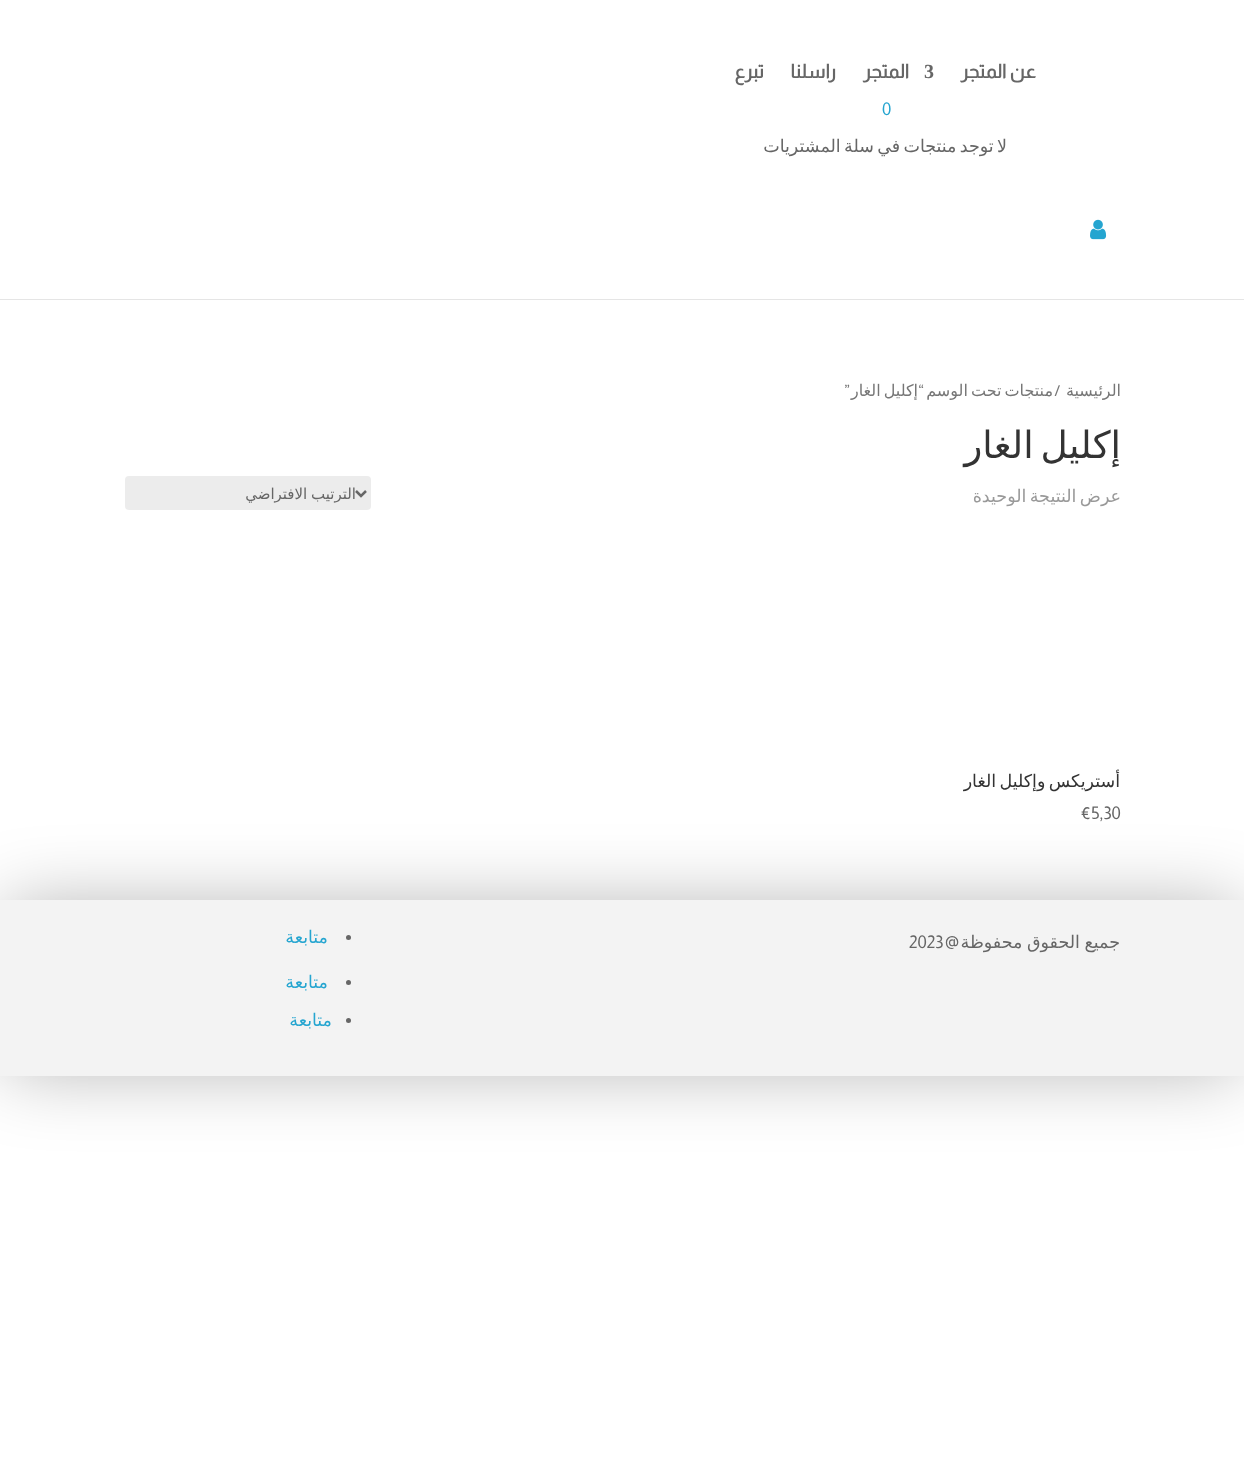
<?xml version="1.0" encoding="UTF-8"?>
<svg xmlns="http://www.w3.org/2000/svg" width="1244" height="1462">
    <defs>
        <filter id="blur1" x="-50%" y="-200%" width="200%" height="500%"><feGaussianBlur stdDeviation="37.5"/></filter>
    </defs>
    <rect width="100%" height="100%" fill="#FFFFFF"/>
    <rect x="0" y="299" width="1244" height="1" fill="#E5E5E5"/>
    <text x="1036" y="78" font-family="Almarai" font-size="19" font-weight="700" direction="rtl" fill="#666666">عن المتجر</text>
    <text x="924" y="78" font-family="Liberation Serif" font-size="20" font-weight="700" fill="#666666">3</text>
    <text x="909" y="78" font-family="Almarai" font-size="19" font-weight="700" direction="rtl" fill="#666666">المتجر</text>
    <text x="836" y="78" font-family="Almarai" font-size="19" font-weight="700" direction="rtl" fill="#666666">راسلنا</text>
    <text x="764" y="78" font-family="Almarai" font-size="19" font-weight="700" direction="rtl" fill="#666666">تبرع</text>
    <text x="882" y="115" font-family="Almarai" font-size="17.5" fill="#25A5D0">0</text>
    <text x="1007" y="152" word-spacing="-2.25" font-family="DejaVu Sans" font-size="17.5" direction="rtl" fill="#666666">لا توجد منتجات في سلة المشتريات</text>
    <image x="1090" y="219" width="17" height="21" href="img_01.png"/>
    <text x="1121" y="396" font-family="DejaVu Sans" font-size="16" direction="rtl" fill="#767676">الرئيسية</text>
    <text x="1053" y="396" word-spacing="-2" font-family="DejaVu Sans" font-size="16" direction="rtl" fill="#767676">منتجات تحت الوسم</text>
    <text x="1060" y="396" font-family="Almarai" font-size="16" direction="rtl" fill="#767676">/</text>
    <text x="850" y="396" font-family="Almarai" font-size="16" direction="rtl" fill="#767676">”</text>
    <text x="918" y="396" word-spacing="-2" font-family="DejaVu Sans" font-size="16" direction="rtl" fill="#767676">إكليل الغار</text>
    <text x="924" y="396" font-family="Almarai" font-size="16" direction="rtl" fill="#767676">“</text>
    <text x="1121" y="458" word-spacing="-5" font-family="DejaVu Sans" font-size="37.5" direction="rtl" fill="#333333">إكليل الغار</text>
    <text x="1121" y="502" word-spacing="-2.25" font-family="DejaVu Sans" font-size="17.5" direction="rtl" fill="#999999">عرض النتيجة الوحيدة</text>
    <rect x="125" y="476" width="246" height="34" rx="4" fill="#ECECEC"/>
    <path d="M 356 491 L 361 496 L 366 491" fill="none" stroke="#666666" stroke-width="2.5"/>
    <text x="356" y="499" word-spacing="-1" font-family="DejaVu Sans" font-size="15" direction="rtl" fill="#666666">الترتيب الافتراضي</text>
    <text x="1120" y="787" word-spacing="-2.25" font-family="DejaVu Sans" font-size="17.5" direction="rtl" fill="#333333">أستريكس وإكليل الغار</text>
    <text x="1080" y="819" font-family="Almarai" font-size="17.5" fill="#666666">€5,30</text>
    <rect x="6" y="906" width="1233" height="164" fill="#000000" fill-opacity="0.3" filter="url(#blur1)"/>
    <rect x="0" y="900" width="1244" height="176" fill="#F3F3F3"/>
    <text x="1120" y="948" word-spacing="-1" font-family="DejaVu Sans" font-size="17.5" direction="rtl" fill="#666666">جميع الحقوق محفوظة</text>
    <text x="959" y="948" font-family="Almarai" font-size="17.5" direction="rtl" fill="#666666">@</text>
    <text x="909" y="948" font-family="Almarai" font-size="17.5" fill="#666666">2023</text>
    <circle cx="348.5" cy="937.5" r="2.5" fill="#666666"/>
    <text x="328" y="943" font-family="DejaVu Sans" font-size="17.5" direction="rtl" fill="#25A5D0">متابعة</text>
    <circle cx="348.5" cy="982.5" r="2.5" fill="#666666"/>
    <text x="328" y="988" font-family="DejaVu Sans" font-size="17.5" direction="rtl" fill="#25A5D0">متابعة</text>
    <circle cx="348.5" cy="1020.5" r="2.5" fill="#666666"/>
    <text x="332" y="1026" font-family="DejaVu Sans" font-size="17.5" direction="rtl" fill="#25A5D0">متابعة</text>
</svg>
